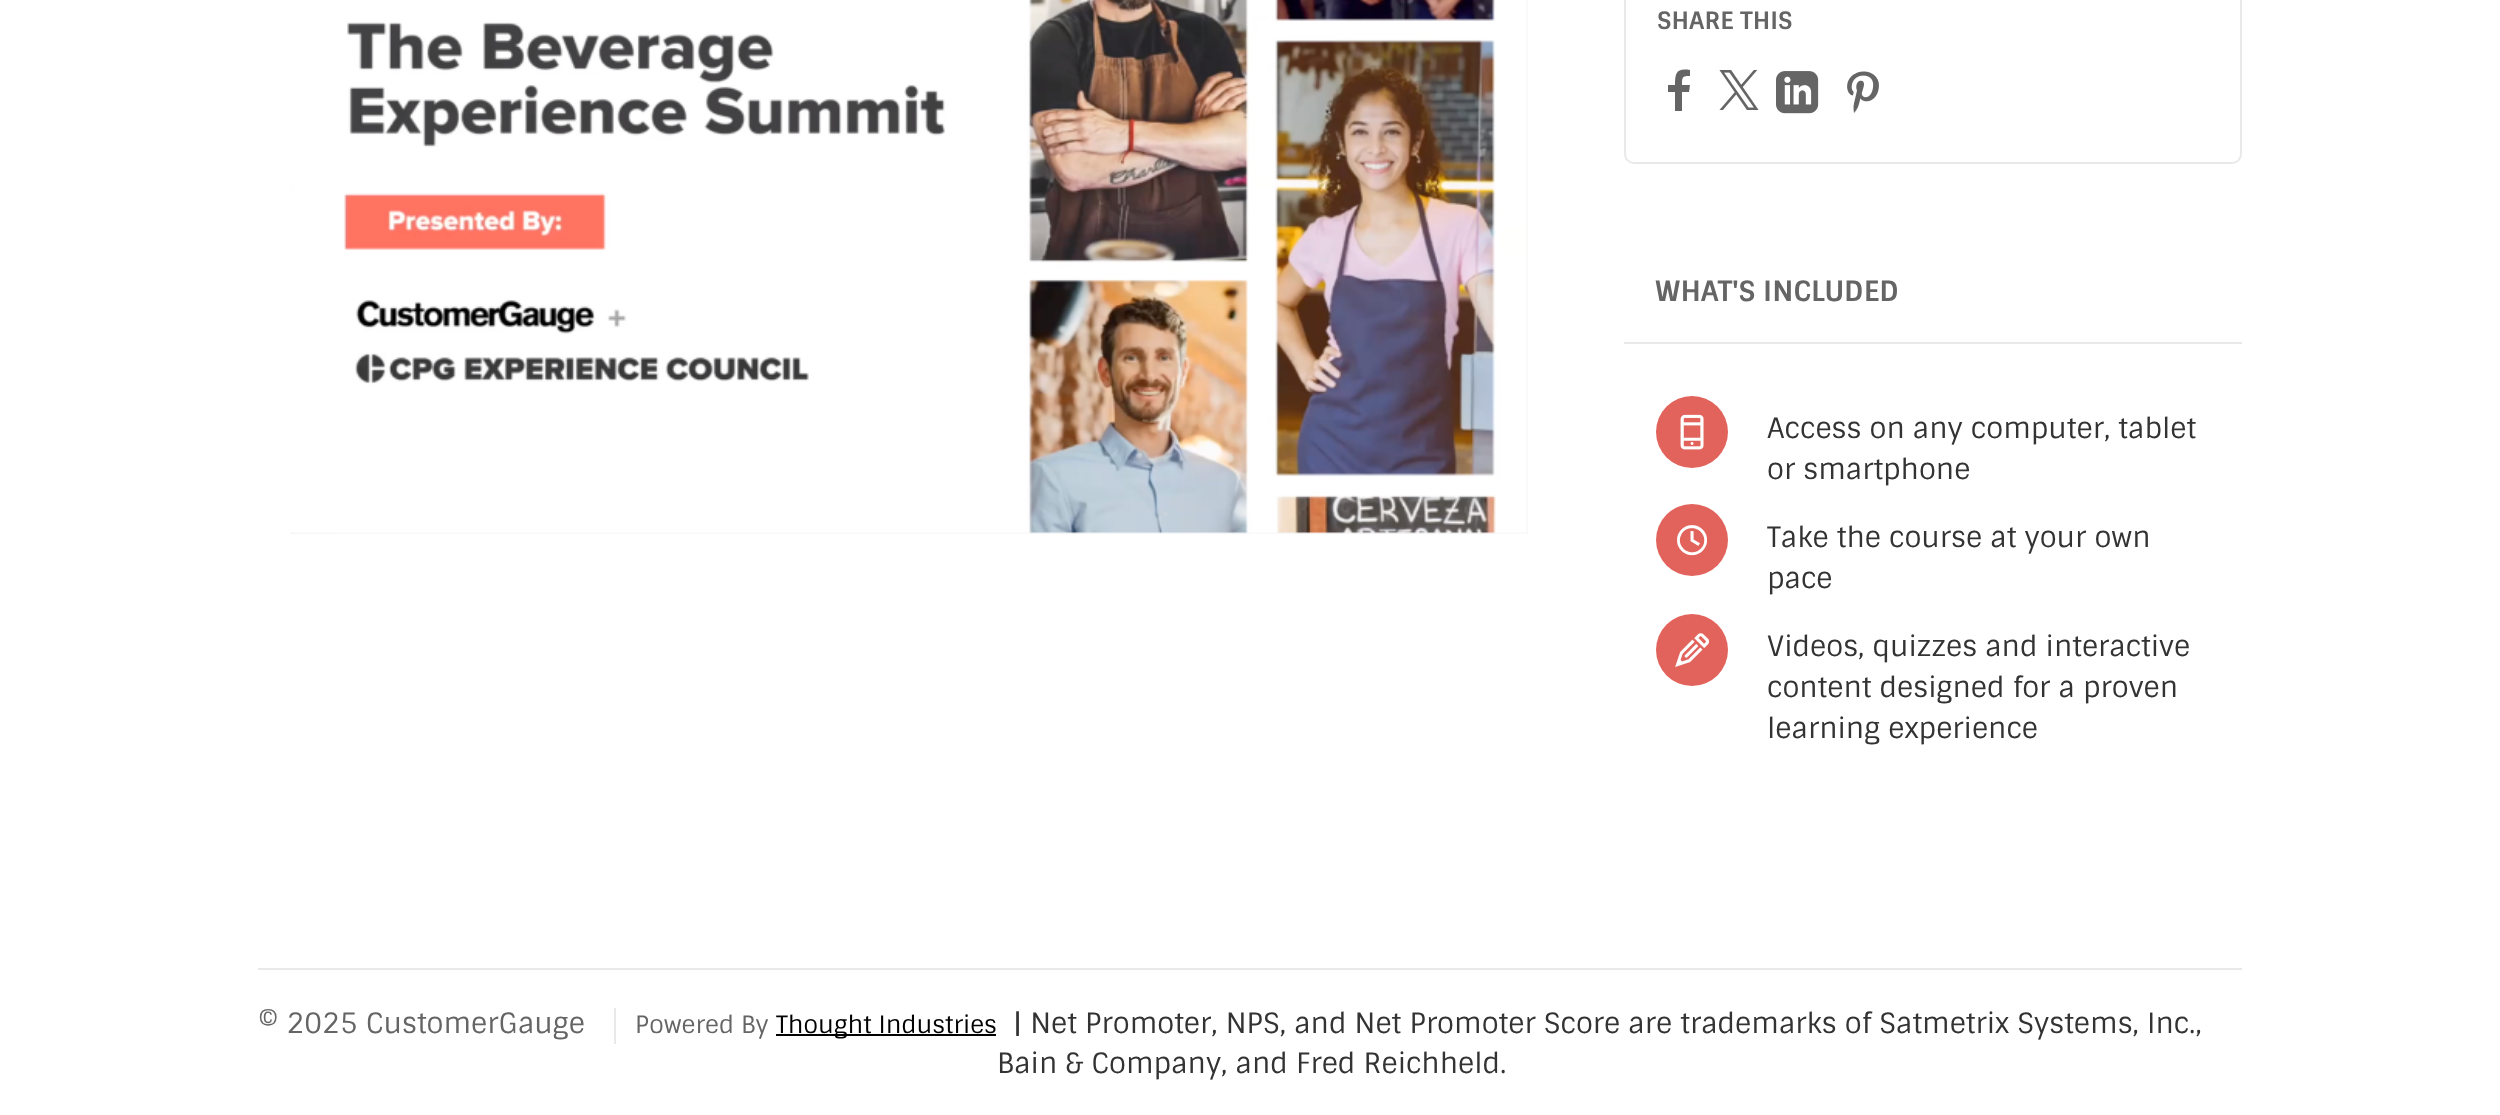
<?xml version="1.0" encoding="UTF-8"?>
<svg xmlns="http://www.w3.org/2000/svg" width="2500" height="1115">
    <rect width="100%" height="100%" fill="#FFFFFF"/>
    <image x="290" y="0" width="1238" height="534" href="img_01.png"/>
    <rect x="1625" y="-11" width="616" height="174" rx="9" fill="none" stroke="#E9E9E9" stroke-width="2"/>
    <text x="1657" y="29" font-family="Sintony" font-size="24" font-weight="700" fill="#656565">SHARE THIS</text>
    <path d="M 1668 92 V 85 H 1675 C 1675 72 1677 68 1690 70 V 76 C 1682 76 1682 77 1682 85 H 1690 L 1689 92 H 1682 V 111 H 1675 V 92 Z" fill="#656565"/>
    <image x="1719" y="70" width="40" height="40" href="img_02.png"/>
    <image x="1776" y="71" width="43" height="43" href="img_03.png"/>
    <image x="1847" y="71" width="32" height="42" href="img_04.png"/>
    <text x="1655" y="301" font-family="Sintony" font-size="28" font-weight="700" fill="#656565">WHAT'S INCLUDED</text>
    <rect x="1624" y="342" width="618" height="2" fill="#E9E9E9"/>
    <circle cx="1692" cy="432" r="36" fill="#E2635C"/>
    <image x="1680" y="414" width="24" height="36" href="img_05.png"/>
    <text font-family="Sintony" font-size="28" fill="#333333">
        <tspan x="1767" y="438">Access on any computer, tablet</tspan>
        <tspan x="1767" y="479">or smartphone</tspan>
    </text>
    <circle cx="1692" cy="540" r="36" fill="#E2635C"/>
    <image x="1677" y="525" width="31" height="31" href="img_06.png"/>
    <text font-family="Sintony" font-size="28" fill="#333333">
        <tspan x="1767" y="547">Take the course at your own</tspan>
        <tspan x="1767" y="588">pace</tspan>
    </text>
    <circle cx="1692" cy="650" r="36" fill="#E2635C"/>
    <image x="1675" y="633" width="35" height="34" href="img_07.png"/>
    <text font-family="Sintony" font-size="28" fill="#333333">
        <tspan x="1767" y="656">Videos, quizzes and interactive</tspan>
        <tspan x="1767" y="697">content designed for a proven</tspan>
        <tspan x="1767" y="738">learning experience</tspan>
    </text>
    <rect x="258" y="968" width="1984" height="2" fill="#E9E9E9"/>
    <text x="258" y="1033" font-family="Sintony" font-size="28" fill="#656565">© 2025 CustomerGauge</text>
    <rect x="614" y="1008" width="2" height="36" fill="#E9E9E9"/>
    <text x="635" y="1033" font-family="Sintony" font-size="24" fill="#656565">Powered By</text>
    <rect x="776" y="1034" width="220" height="2" fill="#000000"/>
    <text x="776" y="1033" font-family="Sintony" font-size="24" fill="#000000">Thought Industries</text>
    <text x="1013" y="1033" font-family="Sintony" font-size="28" fill="#333333">| Net Promoter, NPS, and Net Promoter Score are trademarks of Satmetrix Systems, Inc.,</text>
    <text x="997" y="1073" font-family="Sintony" font-size="28" fill="#333333">Bain &amp; Company, and Fred Reichheld.</text>
</svg>
